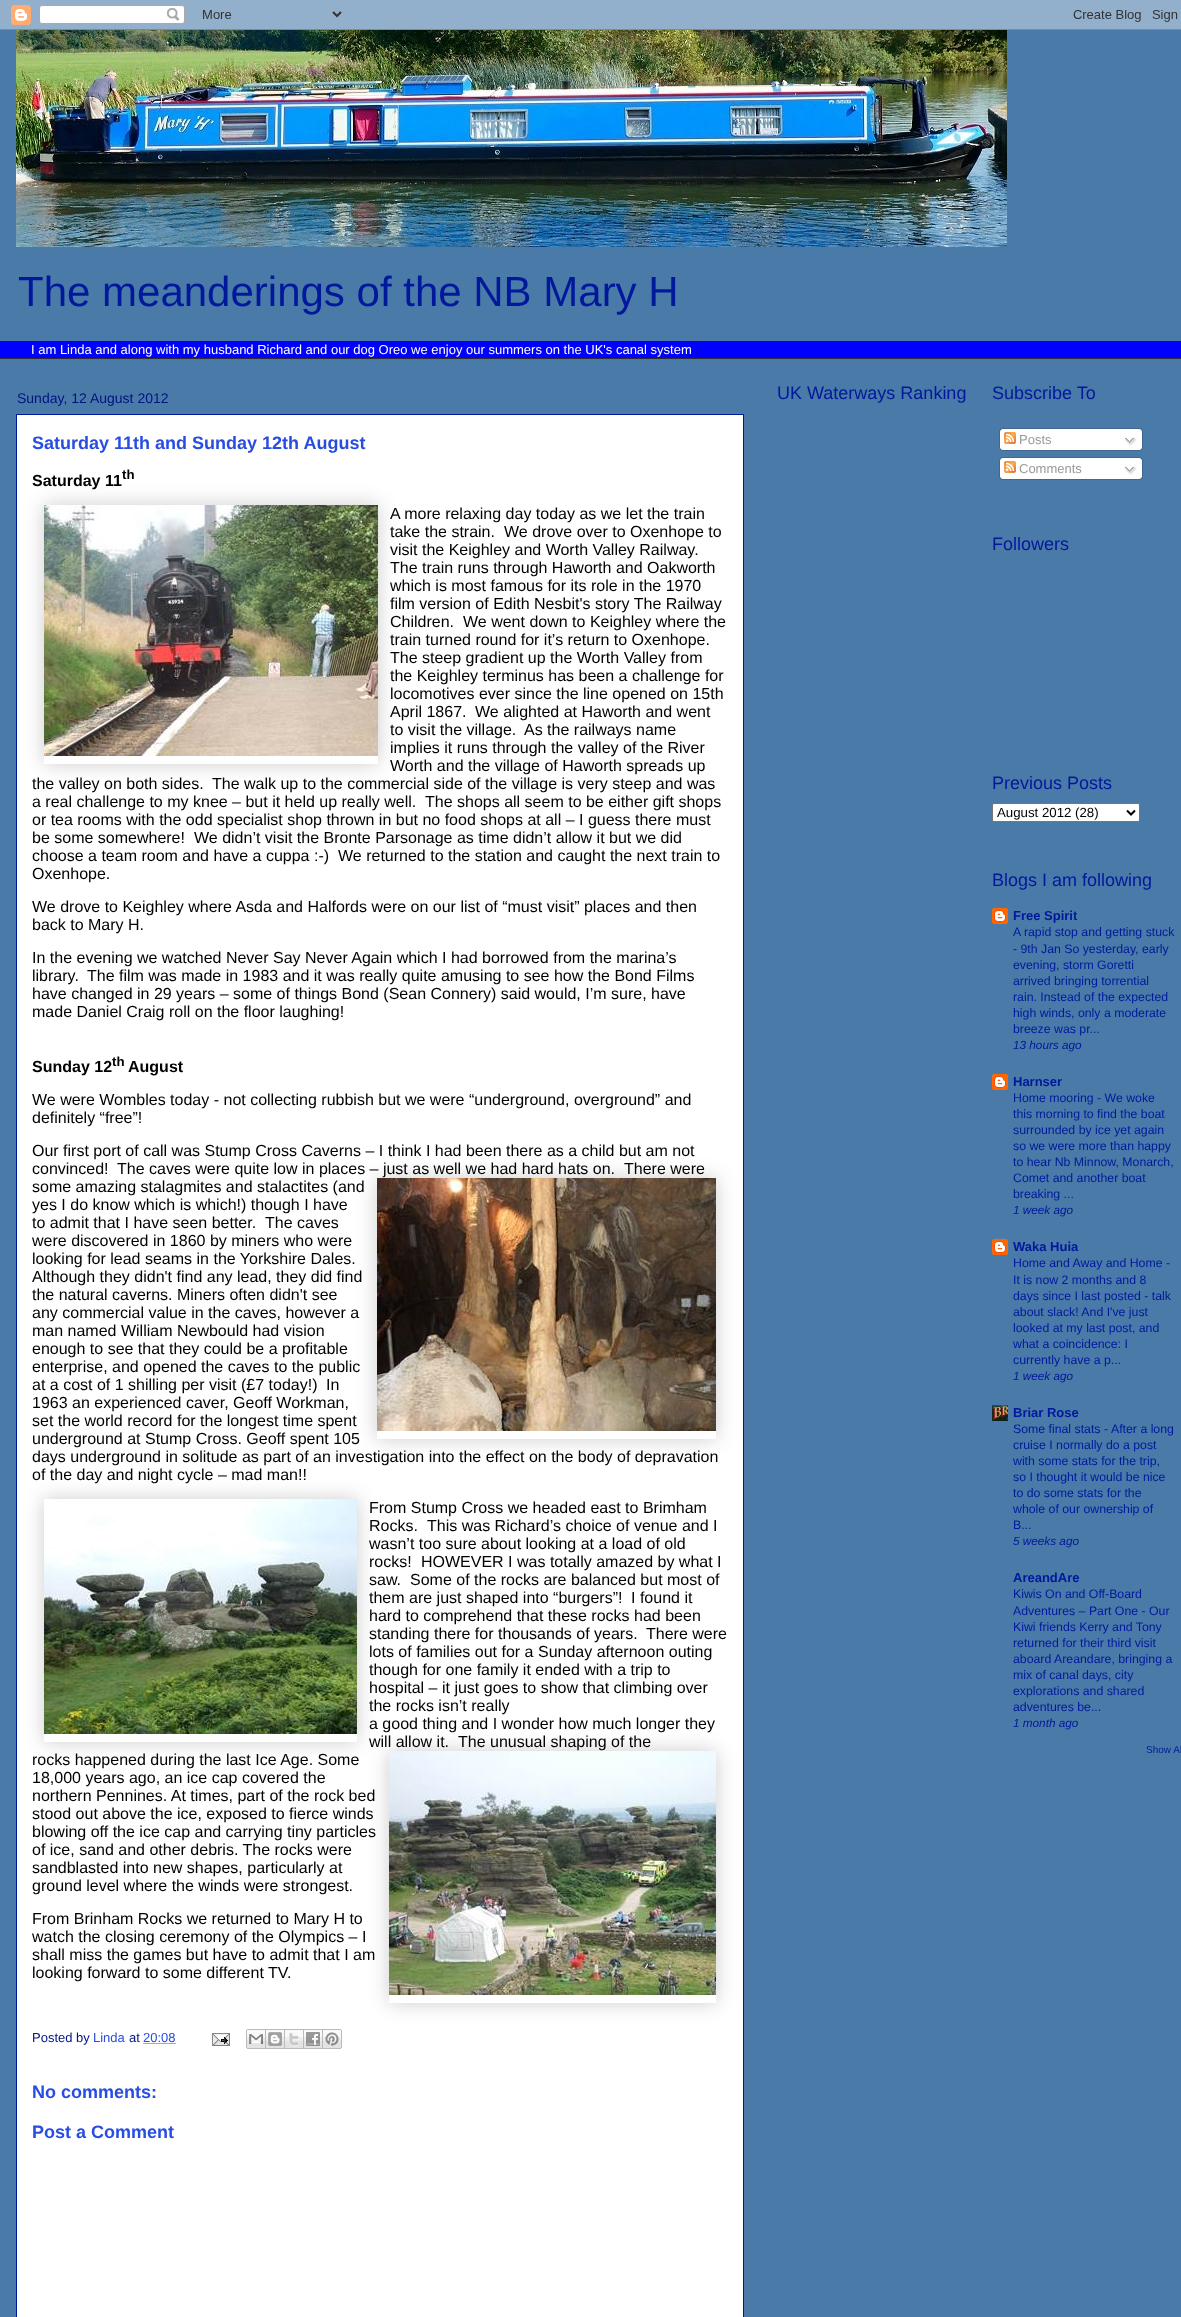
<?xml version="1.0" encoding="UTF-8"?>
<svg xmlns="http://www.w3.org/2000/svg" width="1181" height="2317">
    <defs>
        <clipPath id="clip1"><path d="M 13 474 H 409 V 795 H 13 Z M 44 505 H 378 V 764 H 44 Z" clip-rule="evenodd"/></clipPath>
        <filter id="blur1" x="-50%" y="-200%" width="200%" height="500%"><feGaussianBlur stdDeviation="10"/></filter>
        <clipPath id="clip2"><path d="M 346 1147 H 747 V 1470 H 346 Z M 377 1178 H 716 V 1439 H 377 Z" clip-rule="evenodd"/></clipPath>
        <clipPath id="clip3"><path d="M 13 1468 H 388 V 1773 H 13 Z M 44 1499 H 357 V 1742 H 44 Z" clip-rule="evenodd"/></clipPath>
        <clipPath id="clip4"><path d="M 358 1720 H 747 V 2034 H 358 Z M 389 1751 H 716 V 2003 H 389 Z" clip-rule="evenodd"/></clipPath>
    </defs>
    <rect width="100%" height="100%" fill="#4A7AA8"/>
    <image x="0" y="0" width="1181" height="30" href="img_01.png"/>
    <image x="16" y="30" width="991" height="217" href="img_02.png"/>
    <text x="18" y="306" font-family="Liberation Sans" font-size="42" fill="#00199C">The meanderings of the NB Mary H</text>
    <rect x="0" y="341" width="1181" height="17" fill="#0000FF"/>
    <text x="31" y="354" font-family="Liberation Sans" font-size="13" fill="#FFFFFF">I am Linda and along with my husband Richard and our dog Oreo we enjoy our summers on the UK's canal system</text>
    <rect x="0" y="358" width="1181" height="1" fill="#2F2D37"/>
    <rect x="16.5" y="414.5" width="727" height="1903" fill="#FFFFFF" stroke="#00199C"/>
    <text x="17" y="403" font-family="Liberation Sans" font-size="14" fill="#001482">Sunday, 12 August 2012</text>
    <text x="32" y="449" font-family="Liberation Sans" font-size="18" font-weight="700" fill="#284DE1">Saturday 11th and Sunday 12th August</text>
    <text x="32" y="486" font-family="Liberation Sans" font-size="16" font-weight="700" fill="#000000">Saturday 11</text>
    <text x="122" y="479" font-family="Liberation Sans" font-size="13.25" font-weight="700" fill="#000000">th</text>
    <g clip-path="url(#clip1)">
        <rect x="44" y="505" width="334" height="259" fill="#000000" fill-opacity="0.2" filter="url(#blur1)"/>
    </g>
    <image x="44" y="505" width="334" height="251" href="img_03.png"/>
    <text font-family="Liberation Sans" font-size="16" fill="#000000">
        <tspan x="390" y="519">A more relaxing day today as we let the train</tspan>
        <tspan x="390" y="537">take the strain.</tspan>
    </text>
    <text x="504" y="537" font-family="Liberation Sans" font-size="16" fill="#000000">We drove over to Oxenhope to</text>
    <text font-family="Liberation Sans" font-size="16" fill="#000000">
        <tspan x="390" y="555">visit the Keighley and Worth Valley Railway.</tspan>
        <tspan x="390" y="573">The train runs through Haworth and Oakworth</tspan>
        <tspan x="390" y="591">which is most famous for its role in the 1970</tspan>
        <tspan x="390" y="609">film version of Edith Nesbit's story The Railway</tspan>
        <tspan x="390" y="627">Children.</tspan>
    </text>
    <text x="463" y="627" font-family="Liberation Sans" font-size="16" fill="#000000">We went down to Keighley where the</text>
    <text font-family="Liberation Sans" font-size="16" fill="#000000">
        <tspan x="390" y="645">train turned round for it’s return to Oxenhope.</tspan>
        <tspan x="390" y="663">The steep gradient up the Worth Valley from</tspan>
        <tspan x="390" y="681">the Keighley terminus has been a challenge for</tspan>
        <tspan x="390" y="699">locomotives ever since the line opened on 15th</tspan>
        <tspan x="390" y="717">April 1867.</tspan>
    </text>
    <text x="475" y="717" font-family="Liberation Sans" font-size="16" fill="#000000">We alighted at Haworth and went</text>
    <text x="390" y="735" font-family="Liberation Sans" font-size="16" fill="#000000">to visit the village.</text>
    <text x="524" y="735" font-family="Liberation Sans" font-size="16" fill="#000000">As the railways name</text>
    <text font-family="Liberation Sans" font-size="16" fill="#000000">
        <tspan x="390" y="753">implies it runs through the valley of the River</tspan>
        <tspan x="390" y="771">Worth and the village of Haworth spreads up</tspan>
    </text>
    <text x="32" y="789" font-family="Liberation Sans" font-size="16" fill="#000000">the valley on both sides.</text>
    <text x="212" y="789" font-family="Liberation Sans" font-size="16" fill="#000000">The walk up to the commercial side of the village is very steep and was</text>
    <text x="32" y="807" font-family="Liberation Sans" font-size="16" fill="#000000">a real challenge to my knee – but it held up really well.</text>
    <text x="425" y="807" font-family="Liberation Sans" font-size="16" fill="#000000">The shops all seem to be either gift shops</text>
    <text font-family="Liberation Sans" font-size="16" fill="#000000">
        <tspan x="32" y="825">or tea rooms with the odd specialist shop thrown in but no food shops at all – I guess there must</tspan>
        <tspan x="32" y="843">be some somewhere!</tspan>
    </text>
    <text x="194" y="843" font-family="Liberation Sans" font-size="16" fill="#000000">We didn’t visit the Bronte Parsonage as time didn’t allow it but we did</text>
    <text x="32" y="861" font-family="Liberation Sans" font-size="16" fill="#000000">choose a team room and have a cuppa :-)</text>
    <text x="338" y="861" font-family="Liberation Sans" font-size="16" fill="#000000">We returned to the station and caught the next train to</text>
    <text x="32" y="879" font-family="Liberation Sans" font-size="16" fill="#000000">Oxenhope.</text>
    <text font-family="Liberation Sans" font-size="16" fill="#000000">
        <tspan x="32" y="912">We drove to Keighley where Asda and Halfords were on our list of “must visit” places and then</tspan>
        <tspan x="32" y="930">back to Mary H.</tspan>
    </text>
    <text font-family="Liberation Sans" font-size="16" fill="#000000">
        <tspan x="32" y="963">In the evening we watched Never Say Never Again which I had borrowed from the marina’s</tspan>
        <tspan x="32" y="981">library.</tspan>
    </text>
    <text x="87" y="981" font-family="Liberation Sans" font-size="16" fill="#000000">The film was made in 1983 and it was really quite amusing to see how the Bond Films</text>
    <text font-family="Liberation Sans" font-size="16" fill="#000000">
        <tspan x="32" y="999">have changed in 29 years – some of things Bond (Sean Connery) said would, I’m sure, have</tspan>
        <tspan x="32" y="1017">made Daniel Craig roll on the floor laughing!</tspan>
    </text>
    <text x="32" y="1072" font-family="Liberation Sans" font-size="16" font-weight="700" fill="#000000">Sunday 12</text>
    <text x="112" y="1066" font-family="Liberation Sans" font-size="13.25" font-weight="700" fill="#000000">th</text>
    <text x="128" y="1072" font-family="Liberation Sans" font-size="16" font-weight="700" fill="#000000">August</text>
    <text font-family="Liberation Sans" font-size="16" fill="#000000">
        <tspan x="32" y="1105">We were Wombles today - not collecting rubbish but we were “underground, overground” and</tspan>
        <tspan x="32" y="1123">definitely “free”!</tspan>
    </text>
    <text font-family="Liberation Sans" font-size="16" fill="#000000">
        <tspan x="32" y="1156">Our first port of call was Stump Cross Caverns – I think I had been there as a child but am not</tspan>
        <tspan x="32" y="1174">convinced!</tspan>
    </text>
    <g clip-path="url(#clip2)">
        <rect x="377" y="1178" width="339" height="261" fill="#000000" fill-opacity="0.2" filter="url(#blur1)"/>
    </g>
    <image x="377" y="1178" width="339" height="253" href="img_04.png"/>
    <text x="117" y="1174" font-family="Liberation Sans" font-size="16" fill="#000000">The caves were quite low in places – just as well we had hard hats on.</text>
    <text x="624" y="1174" font-family="Liberation Sans" font-size="16" fill="#000000">There were</text>
    <text font-family="Liberation Sans" font-size="16" fill="#000000">
        <tspan x="32" y="1192">some amazing stalagmites and stalactites (and</tspan>
        <tspan x="32" y="1210">yes I do know which is which!) though I have</tspan>
        <tspan x="32" y="1228">to admit that I have seen better.</tspan>
    </text>
    <text x="265" y="1228" font-family="Liberation Sans" font-size="16" fill="#000000">The caves</text>
    <text font-family="Liberation Sans" font-size="16" fill="#000000">
        <tspan x="32" y="1246">were discovered in 1860 by miners who were</tspan>
        <tspan x="32" y="1264">looking for lead seams in the Yorkshire Dales.</tspan>
        <tspan x="32" y="1282">Although they didn't find any lead, they did find</tspan>
        <tspan x="32" y="1300">the natural caverns. Miners often didn't see</tspan>
        <tspan x="32" y="1318">any commercial value in the caves, however a</tspan>
        <tspan x="32" y="1336">man named William Newbould had vision</tspan>
        <tspan x="32" y="1354">enough to see that they could be a profitable</tspan>
        <tspan x="32" y="1372">enterprise, and opened the caves to the public</tspan>
        <tspan x="32" y="1390">at a cost of 1 shilling per visit (£7 today!)</tspan>
    </text>
    <text x="326" y="1390" font-family="Liberation Sans" font-size="16" fill="#000000">In</text>
    <text font-family="Liberation Sans" font-size="16" fill="#000000">
        <tspan x="32" y="1408">1963 an experienced caver, Geoff Workman,</tspan>
        <tspan x="32" y="1426">set the world record for the longest time spent</tspan>
        <tspan x="32" y="1444">underground at Stump Cross. Geoff spent 105</tspan>
        <tspan x="32" y="1462">days underground in solitude as part of an investigation into the effect on the body of depravation</tspan>
        <tspan x="32" y="1480">of the day and night cycle – mad man!!</tspan>
    </text>
    <g clip-path="url(#clip3)">
        <rect x="44" y="1499" width="313" height="243" fill="#000000" fill-opacity="0.2" filter="url(#blur1)"/>
    </g>
    <image x="44" y="1499" width="313" height="235" href="img_05.png"/>
    <text font-family="Liberation Sans" font-size="16" fill="#000000">
        <tspan x="369" y="1513">From Stump Cross we headed east to Brimham</tspan>
        <tspan x="369" y="1531">Rocks.</tspan>
    </text>
    <text x="427" y="1531" font-family="Liberation Sans" font-size="16" fill="#000000">This was Richard’s choice of venue and I</text>
    <text font-family="Liberation Sans" font-size="16" fill="#000000">
        <tspan x="369" y="1549">wasn’t too sure about looking at a load of old</tspan>
        <tspan x="369" y="1567">rocks!</tspan>
    </text>
    <text x="421" y="1567" font-family="Liberation Sans" font-size="16" fill="#000000">HOWEVER I was totally amazed by what I</text>
    <text x="369" y="1585" font-family="Liberation Sans" font-size="16" fill="#000000">saw.</text>
    <text x="410" y="1585" font-family="Liberation Sans" font-size="16" fill="#000000">Some of the rocks are balanced but most of</text>
    <text x="369" y="1603" font-family="Liberation Sans" font-size="16" fill="#000000">them are just shaped into “burgers”!</text>
    <text x="631" y="1603" font-family="Liberation Sans" font-size="16" fill="#000000">I found it</text>
    <text font-family="Liberation Sans" font-size="16" fill="#000000">
        <tspan x="369" y="1621">hard to comprehend that these rocks had been</tspan>
        <tspan x="369" y="1639">standing there for thousands of years.</tspan>
    </text>
    <text x="646" y="1639" font-family="Liberation Sans" font-size="16" fill="#000000">There were</text>
    <text font-family="Liberation Sans" font-size="16" fill="#000000">
        <tspan x="369" y="1657">lots of families out for a Sunday afternoon outing</tspan>
        <tspan x="369" y="1675">though for one family it ended with a trip to</tspan>
        <tspan x="369" y="1693">hospital – it just goes to show that climbing over</tspan>
        <tspan x="369" y="1711">the rocks isn’t really</tspan>
        <tspan x="369" y="1729">a good thing and I wonder how much longer they</tspan>
        <tspan x="369" y="1747">will allow it.</tspan>
    </text>
    <text x="458" y="1747" font-family="Liberation Sans" font-size="16" fill="#000000">The unusual shaping of the</text>
    <text x="32" y="1765" font-family="Liberation Sans" font-size="16" fill="#000000">rocks happened during the last Ice Age. Some</text>
    <g clip-path="url(#clip4)">
        <rect x="389" y="1751" width="327" height="252" fill="#000000" fill-opacity="0.2" filter="url(#blur1)"/>
    </g>
    <image x="389" y="1751" width="327" height="244" href="img_06.png"/>
    <text font-family="Liberation Sans" font-size="16" fill="#000000">
        <tspan x="32" y="1783">18,000 years ago, an ice cap covered the</tspan>
        <tspan x="32" y="1801">northern Pennines. At times, part of the rock bed</tspan>
        <tspan x="32" y="1819">stood out above the ice, exposed to fierce winds</tspan>
        <tspan x="32" y="1837">blowing off the ice cap and carrying tiny particles</tspan>
        <tspan x="32" y="1855">of ice, sand and other debris. The rocks were</tspan>
        <tspan x="32" y="1873">sandblasted into new shapes, particularly at</tspan>
        <tspan x="32" y="1891">ground level where the winds were strongest.</tspan>
    </text>
    <text font-family="Liberation Sans" font-size="16" fill="#000000">
        <tspan x="32" y="1924">From Brinham Rocks we returned to Mary H to</tspan>
        <tspan x="32" y="1942">watch the closing ceremony of the Olympics – I</tspan>
        <tspan x="32" y="1960">shall miss the games but have to admit that I am</tspan>
        <tspan x="32" y="1978">looking forward to some different TV.</tspan>
    </text>
    <text x="32" y="2042" font-family="Liberation Sans" font-size="13" fill="#001482">Posted by</text>
    <text x="93" y="2042" font-family="Liberation Sans" font-size="13" fill="#284DE1">Linda</text>
    <text x="129" y="2042" font-family="Liberation Sans" font-size="13" fill="#001482">at</text>
    <text x="143" y="2042" font-family="Liberation Sans" font-size="13" fill="#284DE1">20:08</text>
    <path d="M 143.5 2043.5 H 176" fill="none" stroke="#284DE1" stroke-dasharray="1 1"/>
    <image x="212" y="2033" width="18" height="13" href="img_07.png"/>
    <image x="246" y="2029" width="20" height="20" href="img_08.png"/>
    <image x="266" y="2029" width="19" height="20" href="img_09.png"/>
    <image x="285" y="2029" width="19" height="20" href="img_10.png"/>
    <image x="304" y="2029" width="19" height="20" href="img_11.png"/>
    <image x="323" y="2029" width="19" height="20" href="img_12.png"/>
    <text x="32" y="2098" font-family="Liberation Sans" font-size="18" font-weight="700" fill="#284DE1">No comments:</text>
    <text x="32" y="2138" font-family="Liberation Sans" font-size="18" font-weight="700" fill="#284DE1">Post a Comment</text>
    <text x="777" y="399" font-family="Liberation Sans" font-size="18" fill="#00199C">UK Waterways Ranking</text>
    <text x="992" y="399" font-family="Liberation Sans" font-size="18" fill="#00199C">Subscribe To</text>
    <image x="999" y="428" width="144" height="20" href="img_13.png"/>
    <image x="1004" y="432" width="12" height="12" href="img_14.png"/>
    <text x="1019" y="444" font-family="Liberation Sans" font-size="13" fill="#999999">Posts</text>
    <image x="1124" y="437" width="13" height="9" href="img_15.png"/>
    <image x="999" y="448" width="144" height="3" href="img_16.png"/>
    <image x="999" y="457" width="144" height="20" href="img_13.png"/>
    <image x="1004" y="461" width="12" height="12" href="img_14.png"/>
    <text x="1019" y="473" font-family="Liberation Sans" font-size="13" fill="#999999">Comments</text>
    <image x="1124" y="466" width="13" height="9" href="img_15.png"/>
    <image x="999" y="477" width="144" height="3" href="img_16.png"/>
    <text x="992" y="550" font-family="Liberation Sans" font-size="18" fill="#00199C">Followers</text>
    <text x="992" y="789" font-family="Liberation Sans" font-size="18" fill="#00199C">Previous Posts</text>
    <rect x="992.5" y="803.5" width="147" height="18" rx="1.5" fill="#FFFFFF" stroke="#767676"/>
    <path d="M 1127 810.5 L 1131 814.5 L 1135 810.5" fill="none" stroke="#000000" stroke-width="2"/>
    <text x="997" y="817" font-family="Liberation Sans" font-size="13.25" fill="#000000">August 2012 (28)</text>
    <text x="992" y="886" font-family="Liberation Sans" font-size="18" fill="#00199C">Blogs I am following</text>
    <image x="992" y="908" width="16" height="16" href="img_17.png"/>
    <text x="1013" y="920" font-family="Liberation Sans" font-size="13" font-weight="700" fill="#00199C">Free Spirit</text>
    <text font-family="Liberation Sans" font-size="12.3" fill="#00199C">
        <tspan x="1013" y="936">A rapid stop and getting stuck</tspan>
        <tspan x="1013" y="953">- 9th Jan So yesterday, early</tspan>
        <tspan x="1013" y="969">evening, storm Goretti</tspan>
        <tspan x="1013" y="985">arrived bringing torrential</tspan>
        <tspan x="1013" y="1001">rain. Instead of the expected</tspan>
        <tspan x="1013" y="1017">high winds, only a moderate</tspan>
        <tspan x="1013" y="1033">breeze was pr...</tspan>
    </text>
    <text x="1013" y="1049" font-family="Liberation Sans" font-size="11.75" font-style="italic" fill="#00199C">13 hours ago</text>
    <image x="992" y="1074" width="16" height="16" href="img_17.png"/>
    <text x="1013" y="1086" font-family="Liberation Sans" font-size="13" font-weight="700" fill="#00199C">Harnser</text>
    <text font-family="Liberation Sans" font-size="12.3" fill="#00199C">
        <tspan x="1013" y="1102">Home mooring - We woke</tspan>
        <tspan x="1013" y="1118">this morning to find the boat</tspan>
        <tspan x="1013" y="1134">surrounded by ice yet again</tspan>
        <tspan x="1013" y="1150">so we were more than happy</tspan>
        <tspan x="1013" y="1166">to hear Nb Minnow, Monarch,</tspan>
        <tspan x="1013" y="1182">Comet and another boat</tspan>
        <tspan x="1013" y="1198">breaking ...</tspan>
    </text>
    <text x="1013" y="1214" font-family="Liberation Sans" font-size="11.75" font-style="italic" fill="#00199C">1 week ago</text>
    <image x="992" y="1239" width="16" height="16" href="img_17.png"/>
    <text x="1013" y="1251" font-family="Liberation Sans" font-size="13" font-weight="700" fill="#00199C">Waka Huia</text>
    <text font-family="Liberation Sans" font-size="12.3" fill="#00199C">
        <tspan x="1013" y="1267">Home and Away and Home -</tspan>
        <tspan x="1013" y="1284">It is now 2 months and 8</tspan>
        <tspan x="1013" y="1300">days since I last posted - talk</tspan>
        <tspan x="1013" y="1316">about slack! And I've just</tspan>
        <tspan x="1013" y="1332">looked at my last post, and</tspan>
        <tspan x="1013" y="1348">what a coincidence: I</tspan>
        <tspan x="1013" y="1364">currently have a p...</tspan>
    </text>
    <text x="1013" y="1380" font-family="Liberation Sans" font-size="11.75" font-style="italic" fill="#00199C">1 week ago</text>
    <image x="992" y="1405" width="16" height="16" href="img_18.png"/>
    <text x="1013" y="1417" font-family="Liberation Sans" font-size="13" font-weight="700" fill="#00199C">Briar Rose</text>
    <text x="1013" y="1433" font-family="Liberation Sans" font-size="12.3" fill="#00199C">Some final stats -</text>
    <text x="1111" y="1433" font-family="Liberation Sans" font-size="12.3" fill="#00199C">After a long</text>
    <text font-family="Liberation Sans" font-size="12.3" fill="#00199C">
        <tspan x="1013" y="1449">cruise I normally do a post</tspan>
        <tspan x="1013" y="1465">with some stats for the trip,</tspan>
        <tspan x="1013" y="1481">so I thought it would be nice</tspan>
        <tspan x="1013" y="1497">to do some stats for the</tspan>
        <tspan x="1013" y="1513">whole of our ownership of</tspan>
        <tspan x="1013" y="1529">B...</tspan>
    </text>
    <text x="1013" y="1545" font-family="Liberation Sans" font-size="11.75" font-style="italic" fill="#00199C">5 weeks ago</text>
    <text x="1013" y="1582" font-family="Liberation Sans" font-size="13" font-weight="700" fill="#00199C">AreandAre</text>
    <text font-family="Liberation Sans" font-size="12.3" fill="#00199C">
        <tspan x="1013" y="1598">Kiwis On and Off-Board</tspan>
        <tspan x="1013" y="1615">Adventures – Part One - Our</tspan>
        <tspan x="1013" y="1631">Kiwi friends Kerry and Tony</tspan>
        <tspan x="1013" y="1647">returned for their third visit</tspan>
        <tspan x="1013" y="1663">aboard</tspan>
    </text>
    <text x="1054" y="1663" font-family="Liberation Sans" font-size="12.3" fill="#00199C">Areandare, bringing a</text>
    <text font-family="Liberation Sans" font-size="12.3" fill="#00199C">
        <tspan x="1013" y="1679">mix of canal days, city</tspan>
        <tspan x="1013" y="1695">explorations and shared</tspan>
        <tspan x="1013" y="1711">adventures be...</tspan>
    </text>
    <text x="1013" y="1727" font-family="Liberation Sans" font-size="11.75" font-style="italic" fill="#00199C">1 month ago</text>
    <text x="1146" y="1753" font-family="Liberation Sans" font-size="10" fill="#00199C">Show Al</text>
</svg>
